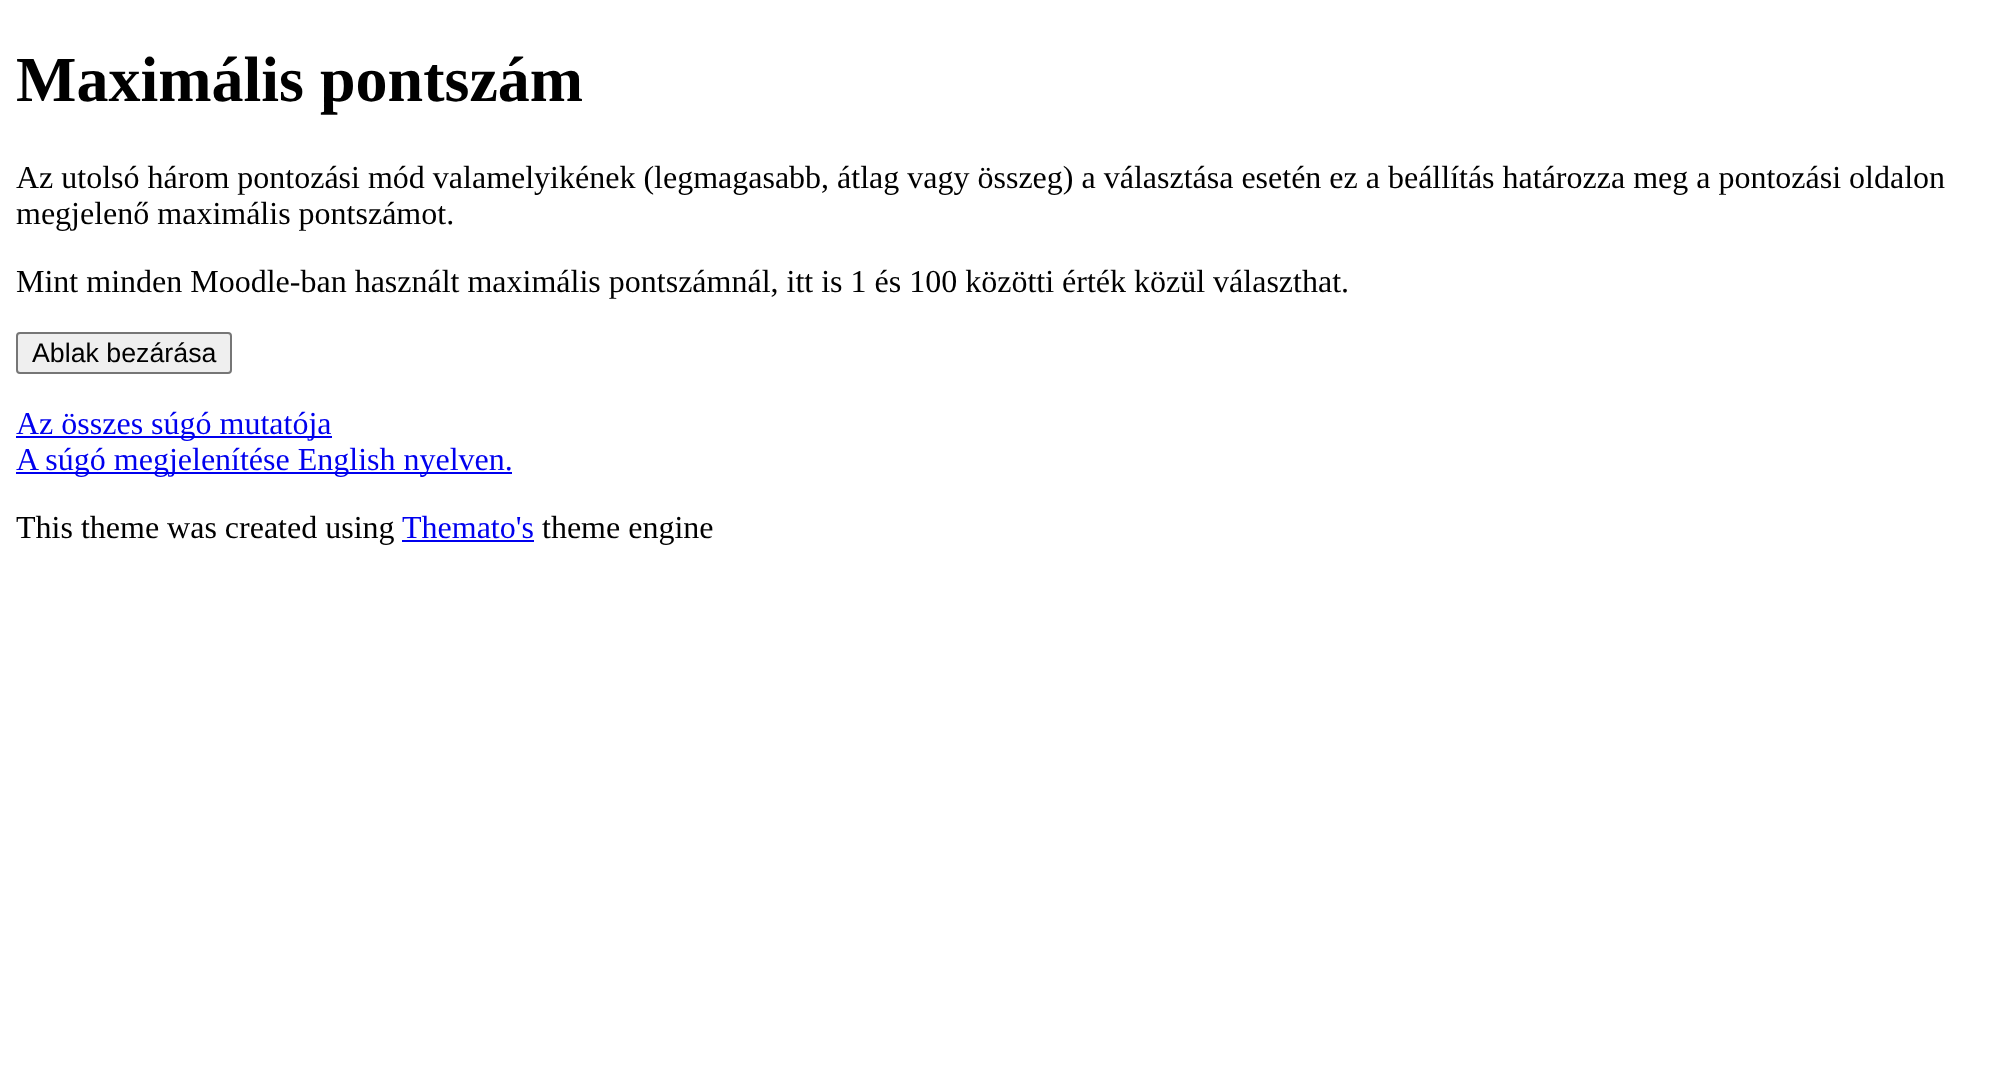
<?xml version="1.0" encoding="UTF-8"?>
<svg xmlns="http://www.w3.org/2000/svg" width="2001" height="1084">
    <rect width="100%" height="100%" fill="#FFFFFF"/>
    <text x="16" y="101" font-family="Liberation Serif" font-size="64" font-weight="700" fill="#000000">Maximális pontszám</text>
    <text font-family="Liberation Serif" font-size="32" fill="#000000">
        <tspan x="16" y="188">Az utolsó három pontozási mód valamelyikének (legmagasabb, átlag vagy összeg) a választása esetén ez a beállítás határozza meg a pontozási oldalon</tspan>
        <tspan x="16" y="224">megjelenő maximális pontszámot.</tspan>
    </text>
    <text x="16" y="292" font-family="Liberation Serif" font-size="32" fill="#000000">Mint minden Moodle-ban használt maximális pontszámnál, itt is 1 és 100 közötti érték közül választhat.</text>
    <rect x="17" y="333" width="214" height="40" rx="3" fill="#EFEFEF" stroke="#767676" stroke-width="2"/>
    <text x="32" y="362" font-family="Liberation Sans" font-size="26.75" fill="#000000">Ablak bezárása</text>
    <rect x="16" y="436" width="316" height="2" fill="#0000EE"/>
    <text x="16" y="434" font-family="Liberation Serif" font-size="32" fill="#0000EE">Az összes súgó mutatója</text>
    <rect x="16" y="472" width="496" height="2" fill="#0000EE"/>
    <text x="16" y="470" font-family="Liberation Serif" font-size="32" fill="#0000EE">A súgó megjelenítése English nyelven.</text>
    <text x="16" y="538" font-family="Liberation Serif" font-size="32" fill="#000000">This theme was created using</text>
    <text x="402" y="538" font-family="Liberation Serif" font-size="32" fill="#0000EE">Themato's</text>
    <rect x="402" y="540" width="132" height="2" fill="#0000EE"/>
    <text x="542" y="538" font-family="Liberation Serif" font-size="32" fill="#000000">theme engine</text>
</svg>
